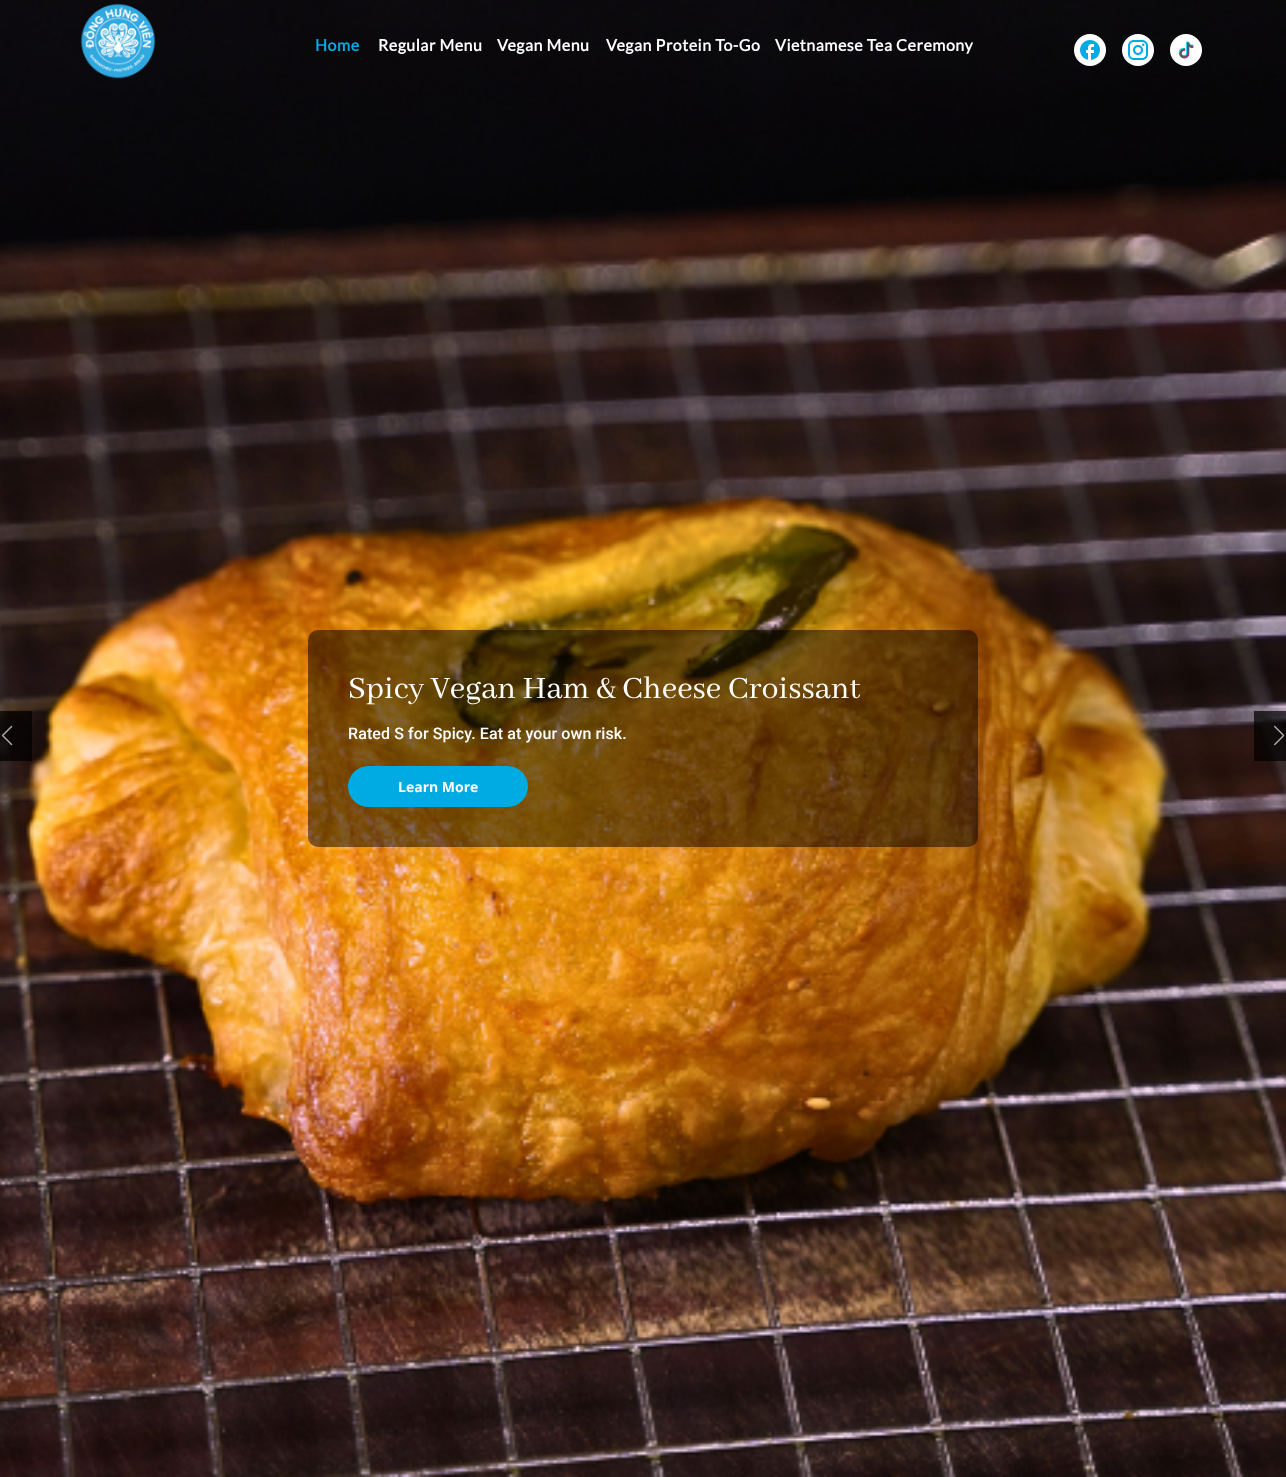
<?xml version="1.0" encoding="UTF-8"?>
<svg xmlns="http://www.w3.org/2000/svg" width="1286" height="1477">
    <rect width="100%" height="100%" fill="#FFFFFF"/>
    <image x="0" y="0" width="1286" height="1477" href="img_06.png"/>
    <image x="80" y="3" width="76" height="76" href="img_01.png"/>
    <text x="315" y="51" font-family="Lato" font-size="16" font-weight="700" letter-spacing="0.5" fill="#00AAE3">Home</text>
    <text x="378" y="51" font-family="Lato" font-size="16" font-weight="700" letter-spacing="0.5" fill="#FFFFFF">Regular Menu</text>
    <text x="497" y="51" font-family="Lato" font-size="16" font-weight="700" letter-spacing="0.5" fill="#FFFFFF">Vegan Menu</text>
    <text x="606" y="51" font-family="Lato" font-size="16" font-weight="700" letter-spacing="0.5" fill="#FFFFFF">Vegan Protein To-Go</text>
    <text x="775" y="51" font-family="Lato" font-size="16" font-weight="700" letter-spacing="0.5" fill="#FFFFFF">Vietnamese Tea Ceremony</text>
    <circle cx="1090" cy="50" r="16" fill="#FFFFFF"/>
    <image x="1080" y="40" width="20" height="20" href="img_02.png"/>
    <circle cx="1138" cy="50" r="16" fill="#FFFFFF"/>
    <image x="1128" y="40" width="20" height="20" href="img_03.png"/>
    <circle cx="1186" cy="50" r="16" fill="#FFFFFF"/>
    <image x="1178" y="41" width="16" height="18" href="img_04.png"/>
    <rect x="0" y="711" width="32" height="50" fill="#000000" fill-opacity="0.7"/>
    <image x="2" y="725" width="11" height="21" href="img_05.png"/>
    <rect x="308" y="630" width="670" height="217" rx="10" fill="#000000" fill-opacity="0.5"/>
    <text x="348" y="698" font-family="Abhaya Libre" font-size="34" fill="#FFFFFF">Spicy Vegan Ham &amp; Cheese Croissant</text>
    <text x="348" y="739" font-family="Roboto" font-size="16" font-weight="500" letter-spacing="0.1" fill="#FFFFFF">Rated S for Spicy. Eat at your own risk.</text>
    <rect x="348" y="766" width="180" height="41" rx="20.5" fill="#00AAE3"/>
    <text x="398" y="792" font-family="Open Sans" font-size="14" font-weight="700" fill="#FFFFFF">Learn More</text>
    <rect x="1254" y="711" width="32" height="50" fill="#000000" fill-opacity="0.7"/>
    <image x="1274" y="725" width="11" height="21" href="img_07.png"/>
</svg>
